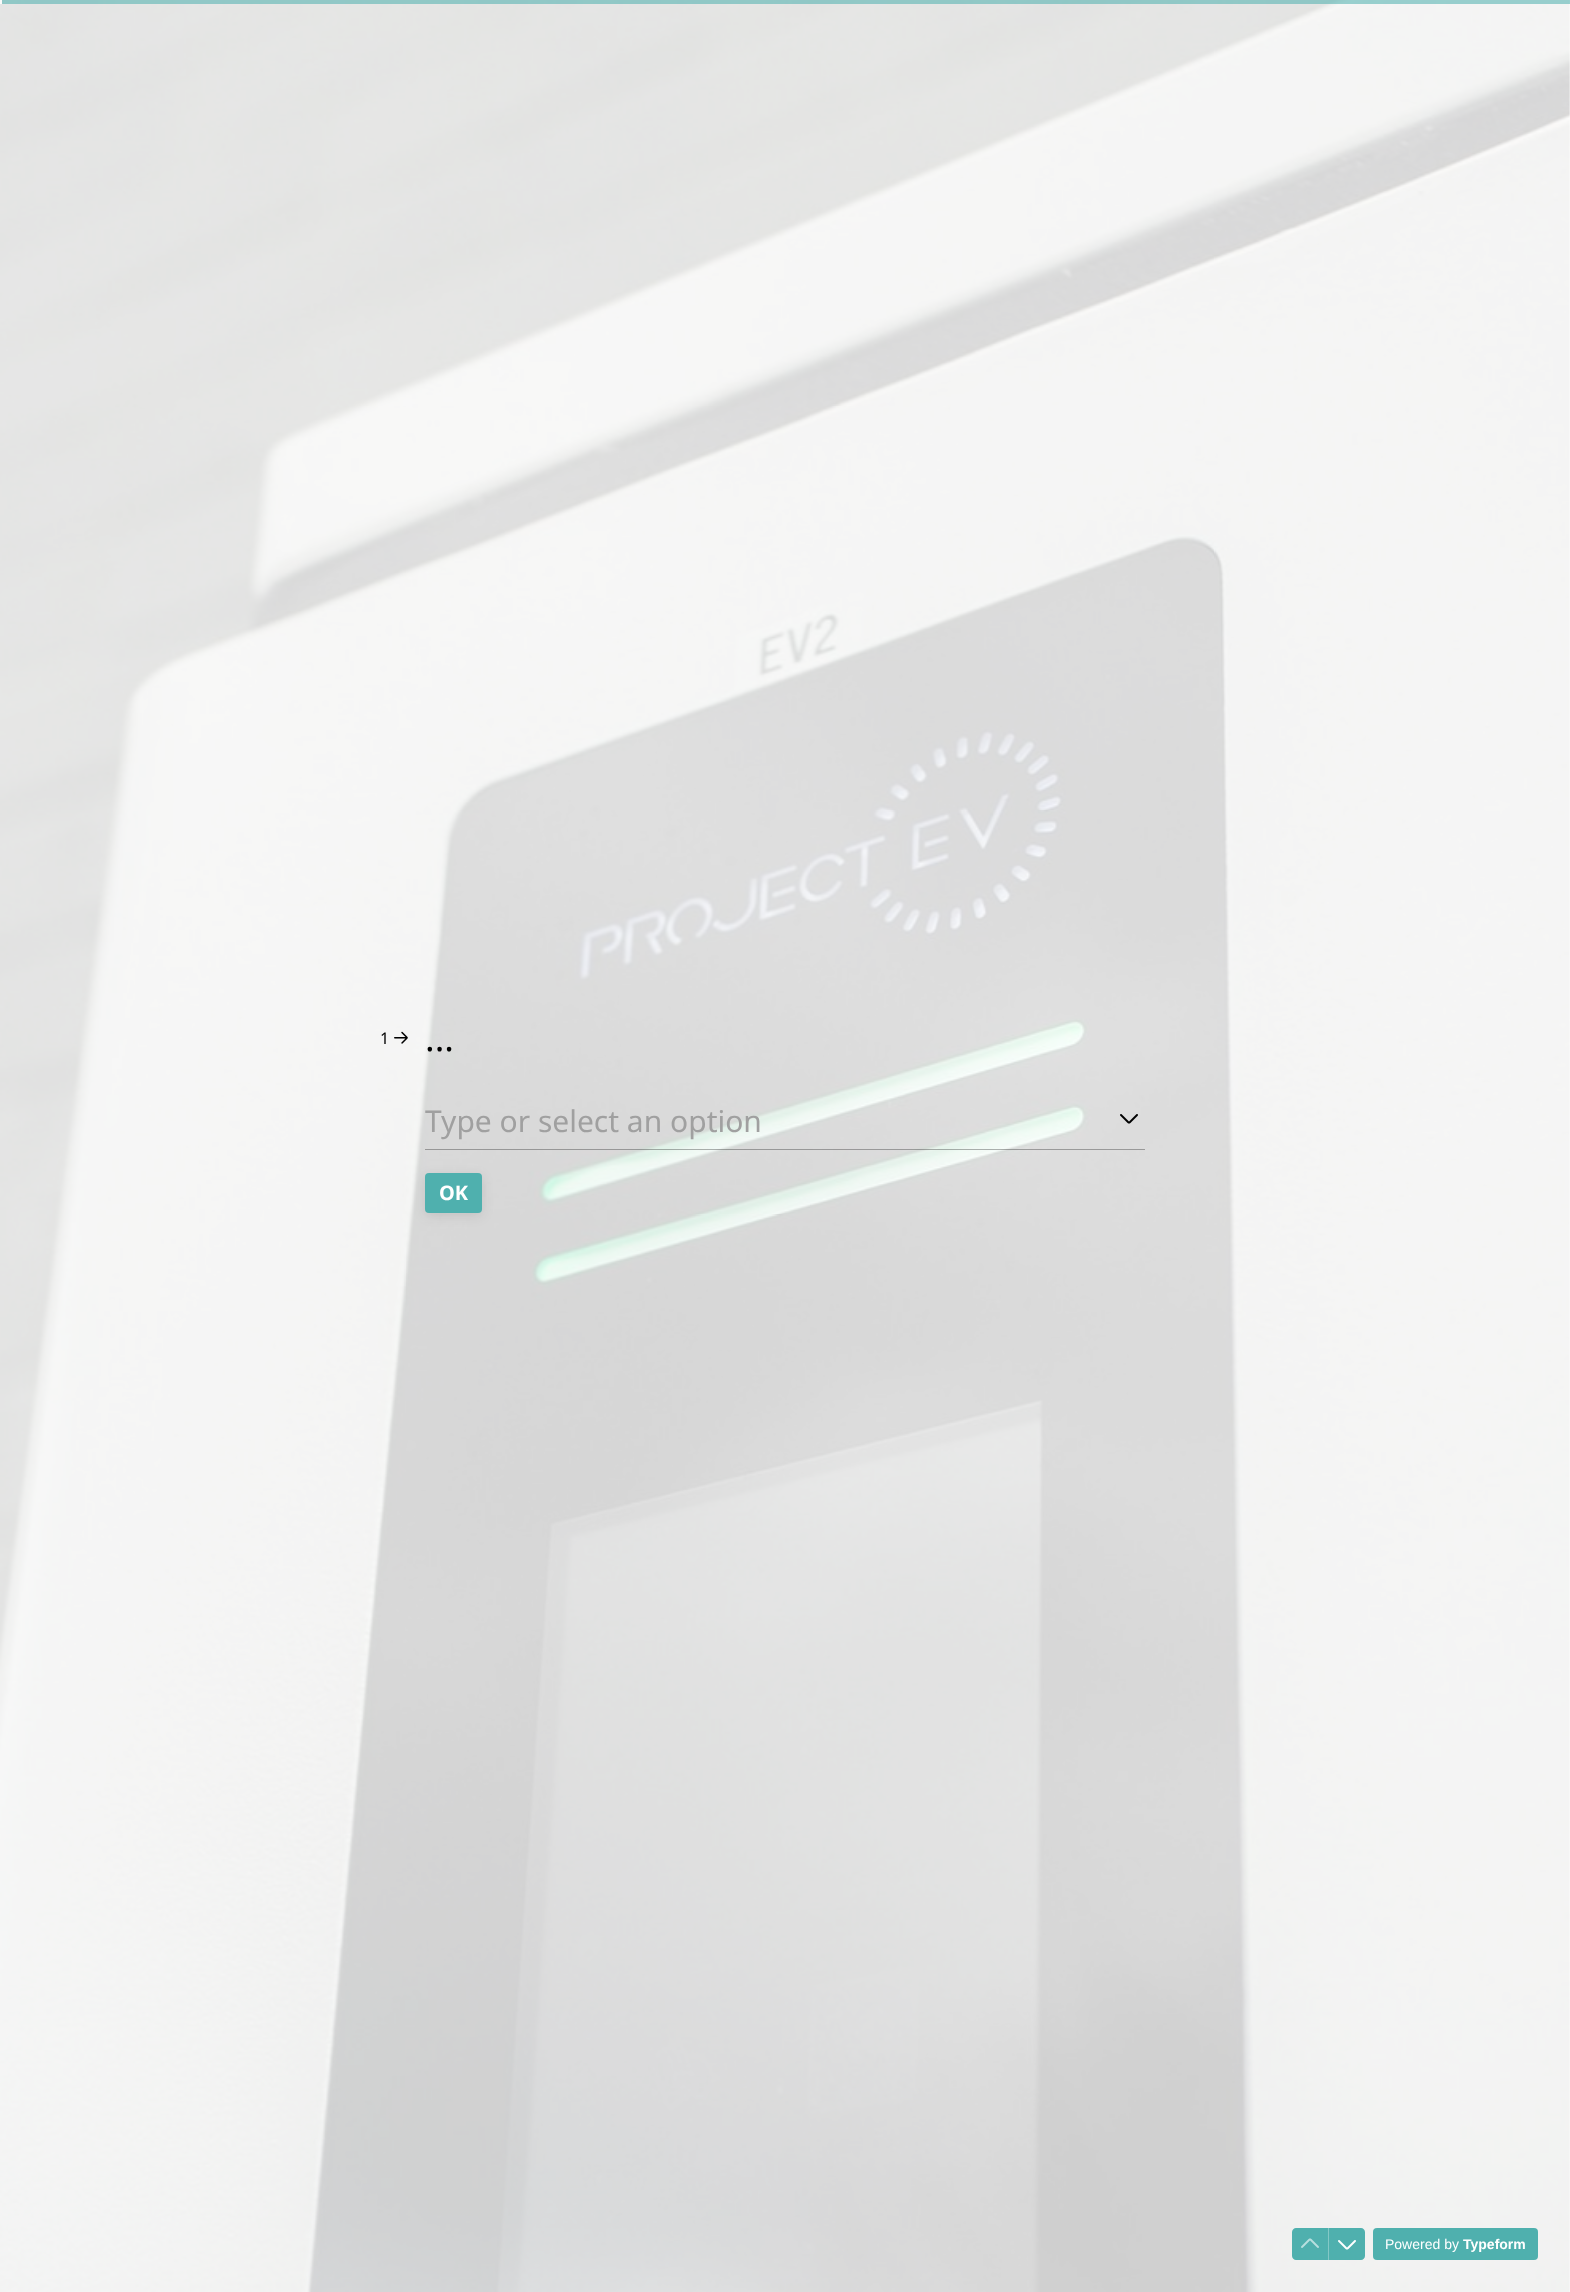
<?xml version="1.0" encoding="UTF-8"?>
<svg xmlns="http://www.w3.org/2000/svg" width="1570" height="2292">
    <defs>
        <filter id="blur1" x="-50%" y="-200%" width="200%" height="500%"><feGaussianBlur stdDeviation="6"/></filter>
    </defs>
    <rect width="100%" height="100%" fill="#FEFEFE"/>
    <image x="0" y="0" width="1570" height="2292" href="img_01.png"/>
    <rect x="0" y="0" width="1570" height="4" fill="#4FB0AE" fill-opacity="0.56"/>
    <rect x="0" y="0" width="2" height="4" fill="#FAFAFA"/>
    <text x="380" y="1044" font-family="Noto Sans" font-size="16" fill="#000000">1</text>
    <image x="394" y="1031" width="14" height="13" href="img_02.png"/>
    <text x="425" y="1051" font-family="Noto Sans" font-size="36" fill="#000000">...</text>
    <rect x="425" y="1149" width="720" height="1" fill="#000000" fill-opacity="0.3"/>
    <text x="425" y="1132" font-family="Noto Sans" font-size="30" fill="#A0A0A0">Type or select an option</text>
    <image x="1120" y="1114" width="18" height="10" href="img_03.png"/>
    <rect x="425" y="1176" width="57" height="40" rx="4" fill="#000000" fill-opacity="0.1" filter="url(#blur1)"/>
    <rect x="425" y="1173" width="57" height="40" rx="4" fill="#4FB0AE"/>
    <text x="439" y="1200" font-family="Noto Sans" font-size="20" font-weight="700" fill="#FFFFFF">OK</text>
    <path d="M 1296 2228 H 1328 V 2260 H 1296 C 1294 2260 1292 2258 1292 2256 V 2232 C 1292 2230 1294 2228 1296 2228 Z" fill="#4FB0AE"/>
    <image x="1301" y="2238" width="18" height="10" href="img_04.png"/>
    <rect x="1328" y="2228" width="1" height="32" fill="#84C8C6"/>
    <path d="M 1329 2228 H 1361 C 1363 2228 1365 2230 1365 2232 V 2256 C 1365 2258 1363 2260 1361 2260 H 1329 Z" fill="#4FB0AE"/>
    <image x="1338" y="2240" width="18" height="10" href="img_05.png"/>
    <rect x="1373" y="2228" width="165" height="32" rx="4" fill="#4FB0AE"/>
    <text x="1385" y="2249" font-family="Liberation Sans" font-size="14" fill="#FFFFFF">Powered by</text>
    <text x="1463" y="2249" font-family="Liberation Sans" font-size="14" font-weight="700" fill="#FFFFFF">Typeform</text>
</svg>
